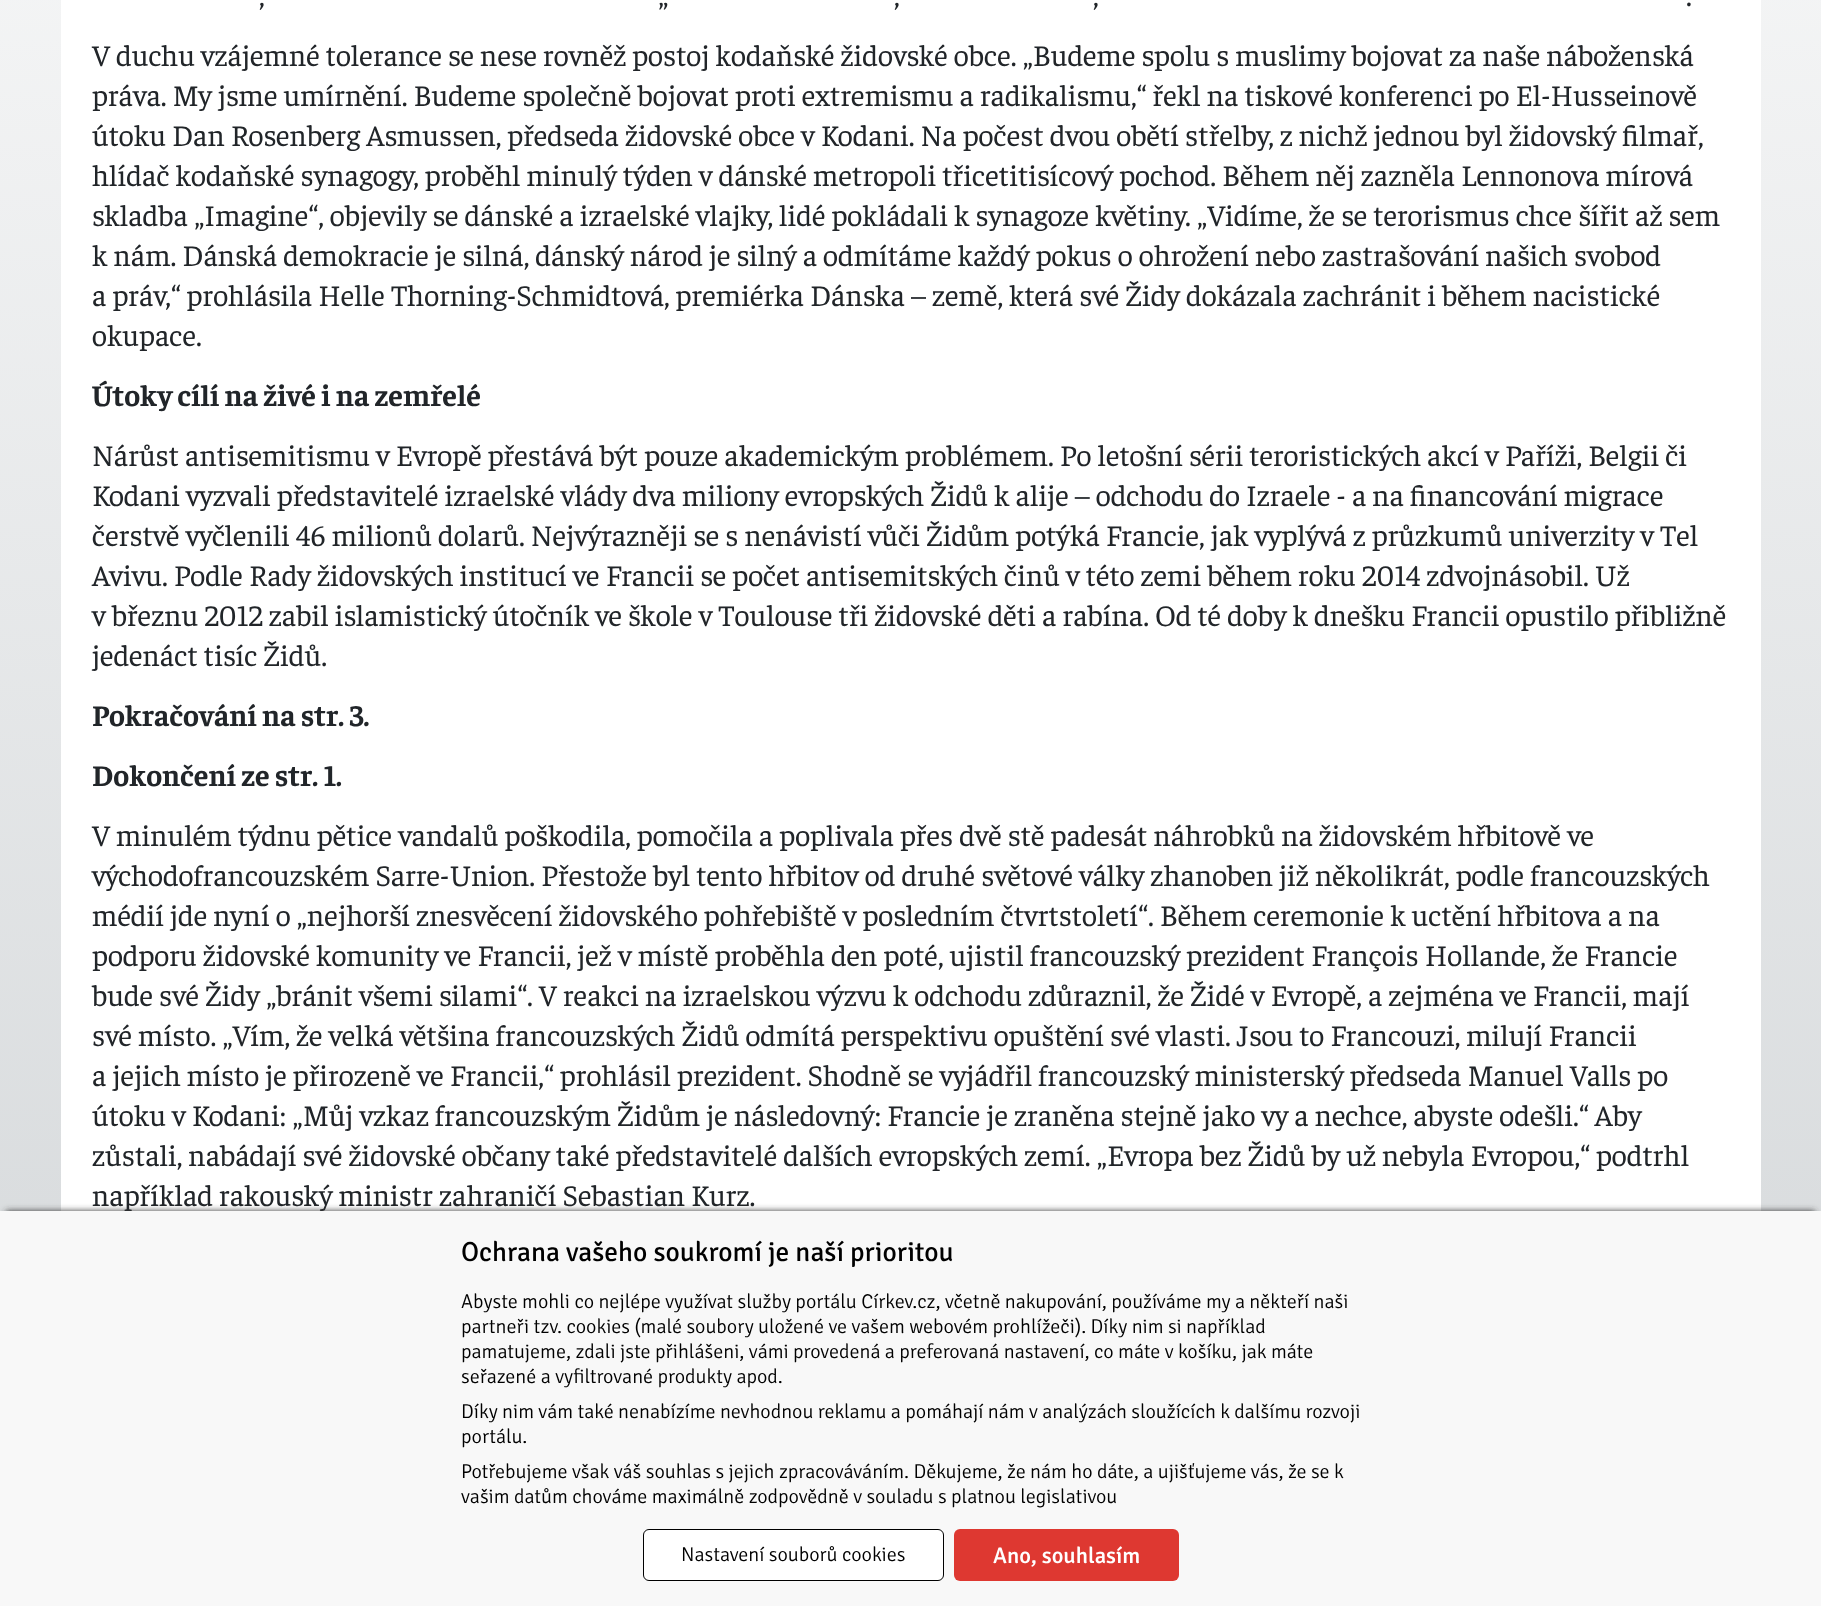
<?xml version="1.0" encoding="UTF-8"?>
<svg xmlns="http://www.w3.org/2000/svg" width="1821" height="1606">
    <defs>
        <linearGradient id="g1" gradientUnits="userSpaceOnUse" x1="911" y1="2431" x2="911" y2="-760"><stop offset="0.35" stop-color="#D8DBDD"/><stop offset="0.95" stop-color="#FFFFFF"/></linearGradient>
        <filter id="blur1" x="-50%" y="-200%" width="200%" height="500%"><feGaussianBlur stdDeviation="3"/></filter>
    </defs>
    <rect width="100%" height="100%" fill="#FFFFFF"/>
    <rect x="0" y="0" width="1821" height="1211" fill="url(#g1)"/>
    <rect x="61" y="0" width="1700" height="1211" fill="#FFFFFF"/>
    <text x="259" y="6" font-family="Faustina" font-size="30" font-weight="300" fill="#212529">,</text>
    <text x="658" y="6" font-family="Faustina" font-size="30" font-weight="300" fill="#212529">„</text>
    <text x="894" y="6" font-family="Faustina" font-size="30" font-weight="300" fill="#212529">,</text>
    <text x="1093" y="6" font-family="Faustina" font-size="30" font-weight="300" fill="#212529">,</text>
    <text x="1686" y="6" font-family="Faustina" font-size="30" font-weight="300" fill="#212529">.</text>
    <text font-family="Faustina" font-size="30" font-weight="300" fill="#212529">
        <tspan x="92" y="66">V duchu vzájemné tolerance se nese rovněž postoj kodaňské židovské obce. „Budeme spolu s muslimy bojovat za naše náboženská</tspan>
        <tspan x="92" y="106">práva. My jsme umírnění. Budeme společně bojovat proti extremismu a radikalismu,“ řekl na tiskové konferenci po El-Husseinově</tspan>
        <tspan x="92" y="146">útoku Dan Rosenberg Asmussen, předseda židovské obce v Kodani. Na počest dvou obětí střelby, z nichž jednou byl židovský filmař,</tspan>
        <tspan x="92" y="186">hlídač kodaňské synagogy, proběhl minulý týden v dánské metropoli třicetitisícový pochod. Během něj zazněla Lennonova mírová</tspan>
        <tspan x="92" y="226">skladba „Imagine“, objevily se dánské a izraelské vlajky, lidé pokládali k synagoze květiny. „Vidíme, že se terorismus chce šířit až sem</tspan>
        <tspan x="92" y="266">k nám. Dánská demokracie je silná, dánský národ je silný a odmítáme každý pokus o ohrožení nebo zastrašování našich svobod</tspan>
        <tspan x="92" y="306">a práv,“ prohlásila Helle Thorning-Schmidtová, premiérka Dánska – země, která své Židy dokázala zachránit i během nacistické</tspan>
        <tspan x="92" y="346">okupace.</tspan>
    </text>
    <text x="92" y="406" font-family="'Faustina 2'" font-size="30" font-weight="300" fill="#212529">Útoky cílí na živé i na zemřelé</text>
    <text font-family="Faustina" font-size="30" font-weight="300" fill="#212529">
        <tspan x="92" y="466">Nárůst antisemitismu v Evropě přestává být pouze akademickým problémem. Po letošní sérii teroristických akcí v Paříži, Belgii či</tspan>
        <tspan x="92" y="506">Kodani vyzvali představitelé izraelské vlády dva miliony evropských Židů k alije – odchodu do Izraele - a na financování migrace</tspan>
        <tspan x="92" y="546">čerstvě vyčlenili 46 milionů dolarů. Nejvýrazněji se s nenávistí vůči Židům potýká Francie, jak vyplývá z průzkumů univerzity v Tel</tspan>
        <tspan x="92" y="586">Avivu. Podle Rady židovských institucí ve Francii se počet antisemitských činů v této zemi během roku 2014 zdvojnásobil. Už</tspan>
        <tspan x="92" y="626">v březnu 2012 zabil islamistický útočník ve škole v Toulouse tři židovské děti a rabína. Od té doby k dnešku Francii opustilo přibližně</tspan>
        <tspan x="92" y="666">jedenáct tisíc Židů.</tspan>
    </text>
    <text x="92" y="726" font-family="'Faustina 2'" font-size="30" font-weight="300" fill="#212529">Pokračování na str. 3.</text>
    <text x="92" y="786" font-family="'Faustina 2'" font-size="30" font-weight="300" fill="#212529">Dokončení ze str. 1.</text>
    <text font-family="Faustina" font-size="30" font-weight="300" fill="#212529">
        <tspan x="92" y="846">V minulém týdnu pětice vandalů poškodila, pomočila a poplivala přes dvě stě padesát náhrobků na židovském hřbitově ve</tspan>
        <tspan x="92" y="886">východofrancouzském Sarre-Union. Přestože byl tento hřbitov od druhé světové války zhanoben již několikrát, podle francouzských</tspan>
        <tspan x="92" y="926">médií jde nyní o „nejhorší znesvěcení židovského pohřebiště v posledním čtvrtstoletí“. Během ceremonie k uctění hřbitova a na</tspan>
        <tspan x="92" y="966">podporu židovské komunity ve Francii, jež v místě proběhla den poté, ujistil francouzský prezident François Hollande, že Francie</tspan>
        <tspan x="92" y="1006">bude své Židy „bránit všemi silami“. V reakci na izraelskou výzvu k odchodu zdůraznil, že Židé v Evropě, a zejména ve Francii, mají</tspan>
        <tspan x="92" y="1046">své místo. „Vím, že velká většina francouzských Židů odmítá perspektivu opuštění své vlasti. Jsou to Francouzi, milují Francii</tspan>
        <tspan x="92" y="1086">a jejich místo je přirozeně ve Francii,“ prohlásil prezident. Shodně se vyjádřil francouzský ministerský předseda Manuel Valls po</tspan>
        <tspan x="92" y="1126">útoku v Kodani: „Můj vzkaz francouzským Židům je následovný: Francie je zraněna stejně jako vy a nechce, abyste odešli.“ Aby</tspan>
        <tspan x="92" y="1166">zůstali, nabádají své židovské občany také představitelé dalších evropských zemí. „Evropa bez Židů by už nebyla Evropou,“ podtrhl</tspan>
        <tspan x="92" y="1206">například rakouský ministr zahraničí Sebastian Kurz.</tspan>
    </text>
    <rect x="6" y="1211" width="1809" height="383" fill="#333333" filter="url(#blur1)"/>
    <rect x="0" y="1211" width="1821" height="395" fill="#F8F8F8"/>
    <text x="461" y="1261" font-family="Signika" font-size="27.5" font-weight="300" fill="#000000">Ochrana vašeho soukromí je naší prioritou</text>
    <text font-family="'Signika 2'" font-size="20" font-weight="300" fill="#000000">
        <tspan x="461" y="1308">Abyste mohli co nejlépe využívat služby portálu Církev.cz, včetně nakupování, používáme my a někteří naši</tspan>
        <tspan x="461" y="1333">partneři tzv. cookies (malé soubory uložené ve vašem webovém prohlížeči). Díky nim si například</tspan>
        <tspan x="461" y="1358">pamatujeme, zdali jste přihlášeni, vámi provedená a preferovaná nastavení, co máte v košíku, jak máte</tspan>
        <tspan x="461" y="1383">seřazené a vyfiltrované produkty apod.</tspan>
        <tspan x="461" y="1418">Díky nim vám také nenabízíme nevhodnou reklamu a pomáhají nám v analýzách sloužících k dalšímu rozvoji</tspan>
        <tspan x="461" y="1443">portálu.</tspan>
        <tspan x="461" y="1478">Potřebujeme však váš souhlas s jejich zpracováváním. Děkujeme, že nám ho dáte, a ujišťujeme vás, že se k</tspan>
        <tspan x="461" y="1503">vašim datům chováme maximálně zodpovědně v souladu s platnou legislativou</tspan>
    </text>
    <rect x="643.5" y="1529.5" width="300" height="51" rx="5.5" fill="#FFFFFF" stroke="#000000"/>
    <text x="681" y="1561" font-family="'Signika 2'" font-size="20" font-weight="300" fill="#000000">Nastavení souborů cookies</text>
    <rect x="954" y="1529" width="225" height="52" rx="6" fill="#DE3831"/>
    <text x="993" y="1563" font-family="'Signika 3'" font-size="22.5" font-weight="300" fill="#FFFFFF">Ano, souhlasím</text>
</svg>
